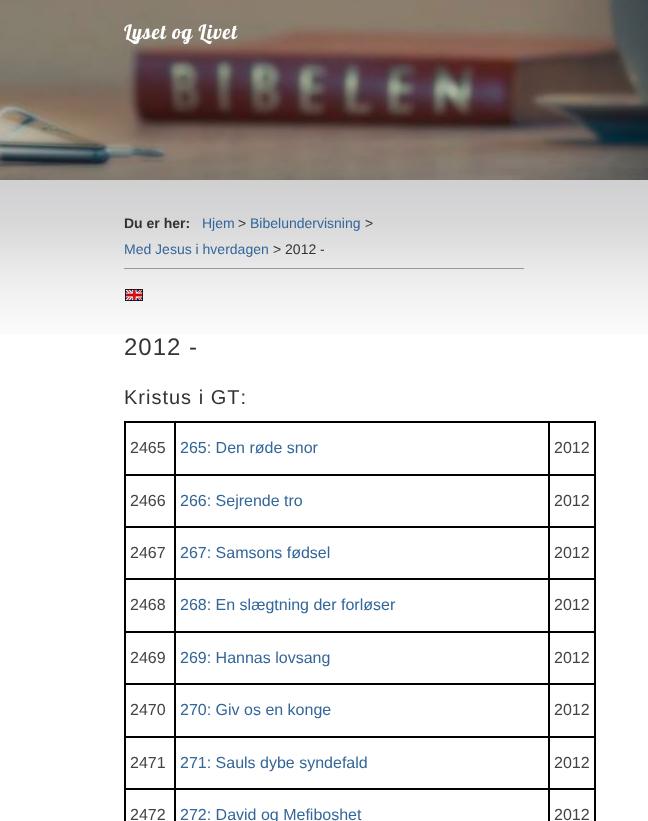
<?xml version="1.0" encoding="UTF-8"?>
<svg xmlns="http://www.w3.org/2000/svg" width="648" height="821">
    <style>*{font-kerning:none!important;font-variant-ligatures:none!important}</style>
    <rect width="100%" height="100%" fill="#FFFFFF"/>
    <image x="0" y="0" width="648" height="180" href="img_01.png"/>
    <text x="124" y="39" font-family="Lobster" font-size="20" letter-spacing="1" fill="#FFFFFF">Lyset og Livet</text>
    <image x="0" y="180" width="648" height="154" href="img_02.png"/>
    <rect x="124" y="268" width="400" height="1" fill="#999999"/>
    <text x="124" y="228" font-family="Liberation Sans" font-size="14" font-weight="700" fill="#333333">Du er her:</text>
    <text x="202" y="228" font-family="Liberation Sans" font-size="14" fill="#336699">Hjem</text>
    <text x="238" y="228" font-family="Liberation Sans" font-size="14" fill="#333333">&gt;</text>
    <text x="250" y="228" font-family="Liberation Sans" font-size="14" fill="#336699">Bibelundervisning</text>
    <text x="365" y="228" font-family="Liberation Sans" font-size="14" fill="#333333">&gt;</text>
    <text x="124" y="254" font-family="Liberation Sans" font-size="14" fill="#336699">Med Jesus i hverdagen</text>
    <text x="273" y="254" font-family="Liberation Sans" font-size="14" fill="#333333">&gt; 2012 -</text>
    <image x="125" y="289" width="18" height="12" href="img_03.png"/>
    <text x="124" y="355" font-family="Liberation Sans" font-size="24" letter-spacing="1" fill="#333333">2012 -</text>
    <text x="124" y="404" font-family="Liberation Sans" font-size="20" letter-spacing="1" fill="#333333">Kristus i GT:</text>
    <rect x="124.5" y="421.5" width="471" height="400" fill="none" stroke="#000000"/>
    <rect x="125.5" y="422.5" width="49" height="52" fill="none" stroke="#000000"/>
    <text x="130" y="453" font-family="Liberation Sans" font-size="16" fill="#444444">2465</text>
    <rect x="175.5" y="422.5" width="373" height="52" fill="none" stroke="#000000"/>
    <text x="180" y="453" font-family="Liberation Sans" font-size="16" fill="#336699">265: Den røde snor</text>
    <rect x="549.5" y="422.5" width="45" height="52" fill="none" stroke="#000000"/>
    <text x="554" y="453" font-family="Liberation Sans" font-size="16" fill="#444444">2012</text>
    <rect x="125.5" y="475.5" width="49" height="51" fill="none" stroke="#000000"/>
    <text x="130" y="506" font-family="Liberation Sans" font-size="16" fill="#444444">2466</text>
    <rect x="175.5" y="475.5" width="373" height="51" fill="none" stroke="#000000"/>
    <text x="180" y="506" font-family="Liberation Sans" font-size="16" fill="#336699">266: Sejrende tro</text>
    <rect x="549.5" y="475.5" width="45" height="51" fill="none" stroke="#000000"/>
    <text x="554" y="506" font-family="Liberation Sans" font-size="16" fill="#444444">2012</text>
    <rect x="125.5" y="527.5" width="49" height="51" fill="none" stroke="#000000"/>
    <text x="130" y="558" font-family="Liberation Sans" font-size="16" fill="#444444">2467</text>
    <rect x="175.5" y="527.5" width="373" height="51" fill="none" stroke="#000000"/>
    <text x="180" y="558" font-family="Liberation Sans" font-size="16" fill="#336699">267: Samsons fødsel</text>
    <rect x="549.5" y="527.5" width="45" height="51" fill="none" stroke="#000000"/>
    <text x="554" y="558" font-family="Liberation Sans" font-size="16" fill="#444444">2012</text>
    <rect x="125.5" y="579.5" width="49" height="52" fill="none" stroke="#000000"/>
    <text x="130" y="610" font-family="Liberation Sans" font-size="16" fill="#444444">2468</text>
    <rect x="175.5" y="579.5" width="373" height="52" fill="none" stroke="#000000"/>
    <text x="180" y="610" font-family="Liberation Sans" font-size="16" fill="#336699">268: En slægtning der forløser</text>
    <rect x="549.5" y="579.5" width="45" height="52" fill="none" stroke="#000000"/>
    <text x="554" y="610" font-family="Liberation Sans" font-size="16" fill="#444444">2012</text>
    <rect x="125.5" y="632.5" width="49" height="51" fill="none" stroke="#000000"/>
    <text x="130" y="663" font-family="Liberation Sans" font-size="16" fill="#444444">2469</text>
    <rect x="175.5" y="632.5" width="373" height="51" fill="none" stroke="#000000"/>
    <text x="180" y="663" font-family="Liberation Sans" font-size="16" fill="#336699">269: Hannas lovsang</text>
    <rect x="549.5" y="632.5" width="45" height="51" fill="none" stroke="#000000"/>
    <text x="554" y="663" font-family="Liberation Sans" font-size="16" fill="#444444">2012</text>
    <rect x="125.5" y="684.5" width="49" height="52" fill="none" stroke="#000000"/>
    <text x="130" y="715" font-family="Liberation Sans" font-size="16" fill="#444444">2470</text>
    <rect x="175.5" y="684.5" width="373" height="52" fill="none" stroke="#000000"/>
    <text x="180" y="715" font-family="Liberation Sans" font-size="16" fill="#336699">270: Giv os en konge</text>
    <rect x="549.5" y="684.5" width="45" height="52" fill="none" stroke="#000000"/>
    <text x="554" y="715" font-family="Liberation Sans" font-size="16" fill="#444444">2012</text>
    <rect x="125.5" y="737.5" width="49" height="51" fill="none" stroke="#000000"/>
    <text x="130" y="768" font-family="Liberation Sans" font-size="16" fill="#444444">2471</text>
    <rect x="175.5" y="737.5" width="373" height="51" fill="none" stroke="#000000"/>
    <text x="180" y="768" font-family="Liberation Sans" font-size="16" fill="#336699">271: Sauls dybe syndefald</text>
    <rect x="549.5" y="737.5" width="45" height="51" fill="none" stroke="#000000"/>
    <text x="554" y="768" font-family="Liberation Sans" font-size="16" fill="#444444">2012</text>
    <rect x="125.5" y="789.5" width="49" height="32" fill="none" stroke="#000000"/>
    <text x="130" y="820" font-family="Liberation Sans" font-size="16" fill="#444444">2472</text>
    <rect x="175.5" y="789.5" width="373" height="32" fill="none" stroke="#000000"/>
    <text x="180" y="820" font-family="Liberation Sans" font-size="16" fill="#336699">272: David og Mefiboshet</text>
    <rect x="549.5" y="789.5" width="45" height="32" fill="none" stroke="#000000"/>
    <text x="554" y="820" font-family="Liberation Sans" font-size="16" fill="#444444">2012</text>
</svg>
